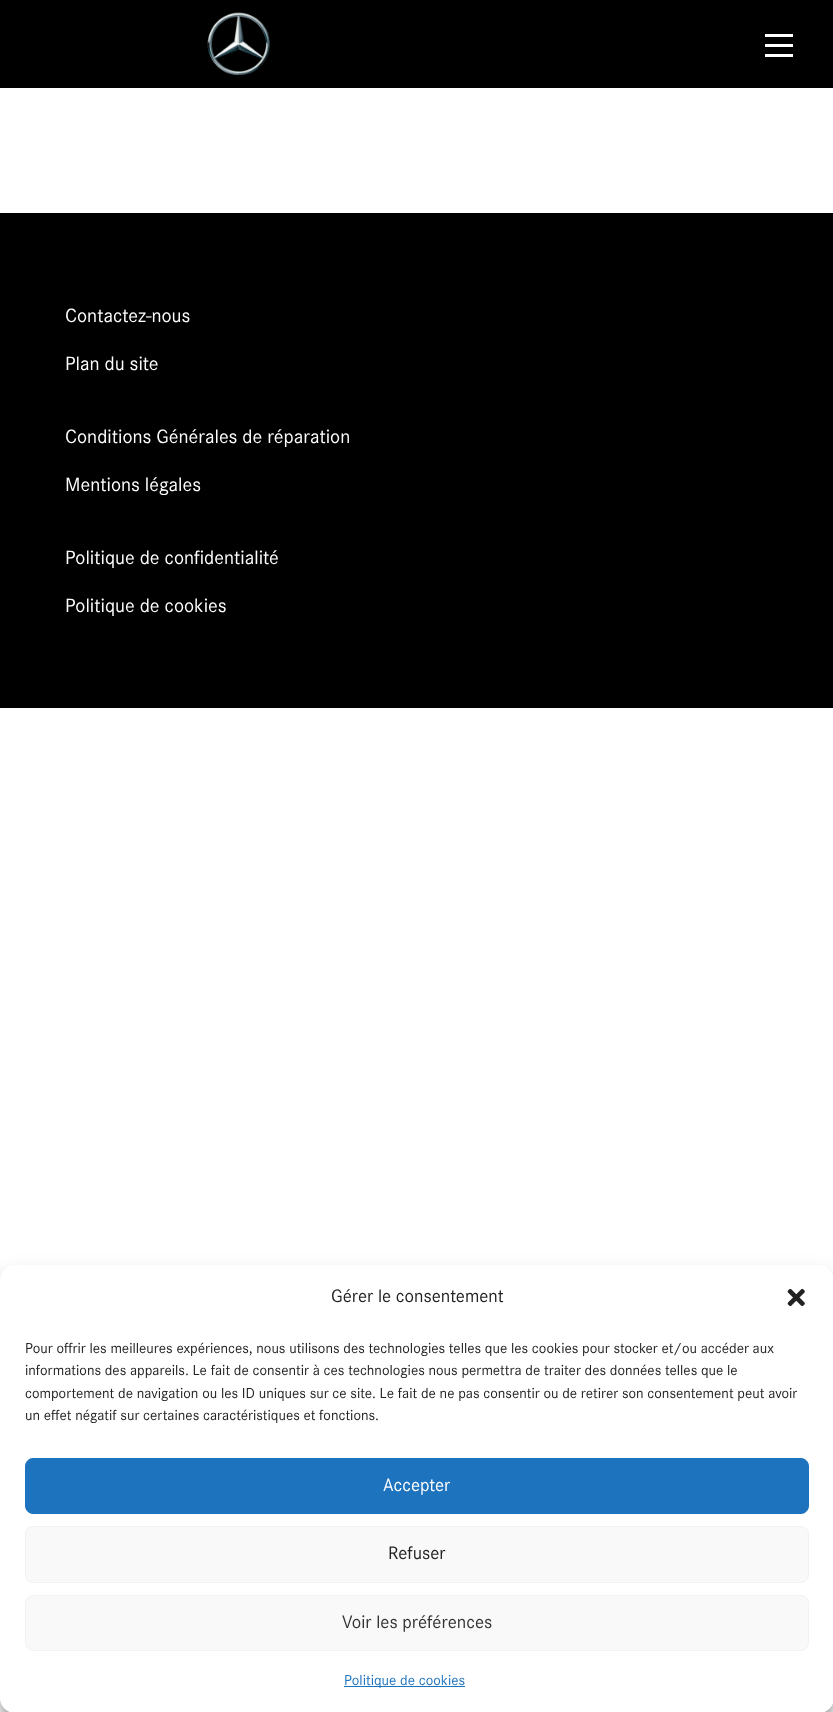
<?xml version="1.0" encoding="UTF-8"?>
<svg xmlns="http://www.w3.org/2000/svg" width="833" height="1712">
    <defs>
        <filter id="blur1" x="-50%" y="-200%" width="200%" height="500%"><feGaussianBlur stdDeviation="4"/></filter>
        <filter id="blur2" x="-50%" y="-200%" width="200%" height="500%"><feGaussianBlur stdDeviation="12.5"/></filter>
    </defs>
    <rect width="100%" height="100%" fill="#FFFFFF"/>
    <rect x="0" y="0" width="833" height="88" fill="#000000"/>
    <image x="207" y="12" width="63" height="63" href="img_01.png"/>
    <rect x="765" y="34" width="28" height="3" fill="#FFFFFF"/>
    <rect x="765" y="44" width="28" height="3" fill="#FFFFFF"/>
    <rect x="765" y="54" width="28" height="3" fill="#FFFFFF"/>
    <rect x="0" y="213" width="833" height="495" fill="#000000"/>
    <text x="65" y="322" font-family="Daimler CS" font-size="20" fill="#FFFFFF">Contactez-nous</text>
    <text x="65" y="370" font-family="Daimler CS" font-size="20" fill="#FFFFFF">Plan du site</text>
    <text x="65" y="443" font-family="Daimler CS" font-size="20" fill="#FFFFFF">Conditions Générales de réparation</text>
    <text x="65" y="491" font-family="Daimler CS" font-size="20" fill="#FFFFFF">Mentions légales</text>
    <text x="65" y="564" font-family="Daimler CS" font-size="20" fill="#FFFFFF">Politique de confidentialité</text>
    <text x="65" y="612" font-family="Daimler CS" font-size="20" fill="#FFFFFF">Politique de cookies</text>
    <rect x="0" y="1273" width="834" height="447" rx="15" fill="#000000" fill-opacity="0.23" filter="url(#blur1)"/>
    <rect x="0" y="1278" width="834" height="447" rx="15" fill="#000000" fill-opacity="0.19" filter="url(#blur2)"/>
    <rect x="0" y="1265" width="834" height="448" rx="15" fill="#FFFFFF"/>
    <text x="331" y="1302" font-family="Daimler CS" font-size="18.75" fill="#222222">Gérer le consentement</text>
    <image x="787" y="1288" width="18" height="19" href="img_02.png"/>
    <text font-family="Daimler CS" font-size="15" fill="#222222">
        <tspan x="25" y="1353">Pour offrir les meilleures expériences, nous utilisons des technologies telles que les cookies pour stocker et/ou accéder aux</tspan>
        <tspan x="25" y="1375">informations des appareils. Le fait de consentir à ces technologies nous permettra de traiter des données telles que le</tspan>
        <tspan x="25" y="1398">comportement de navigation ou les ID uniques sur ce site. Le fait de ne pas consentir ou de retirer son consentement peut avoir</tspan>
        <tspan x="25" y="1420">un effet négatif sur certaines caractéristiques et fonctions.</tspan>
    </text>
    <rect x="25.5" y="1458.5" width="783" height="55" rx="7.5" fill="#1E73BE" stroke="#1E73BE"/>
    <text x="383" y="1491" font-family="Daimler CS" font-size="18.75" fill="#FFFFFF">Accepter</text>
    <rect x="25.5" y="1526.5" width="783" height="56" rx="7.5" fill="#F9F9F9" stroke="#F2F2F2"/>
    <text x="388" y="1559" font-family="Daimler CS" font-size="18.75" fill="#222222">Refuser</text>
    <rect x="25.5" y="1595.5" width="783" height="55" rx="7.5" fill="#F9F9F9" stroke="#F2F2F2"/>
    <text x="342" y="1628" font-family="Daimler CS" font-size="18.75" fill="#333333">Voir les préférences</text>
    <rect x="344" y="1686" width="121" height="1" fill="#1E73BE"/>
    <text x="344" y="1685" font-family="Daimler CS" font-size="15" fill="#1E73BE">Politique de cookies</text>
</svg>
